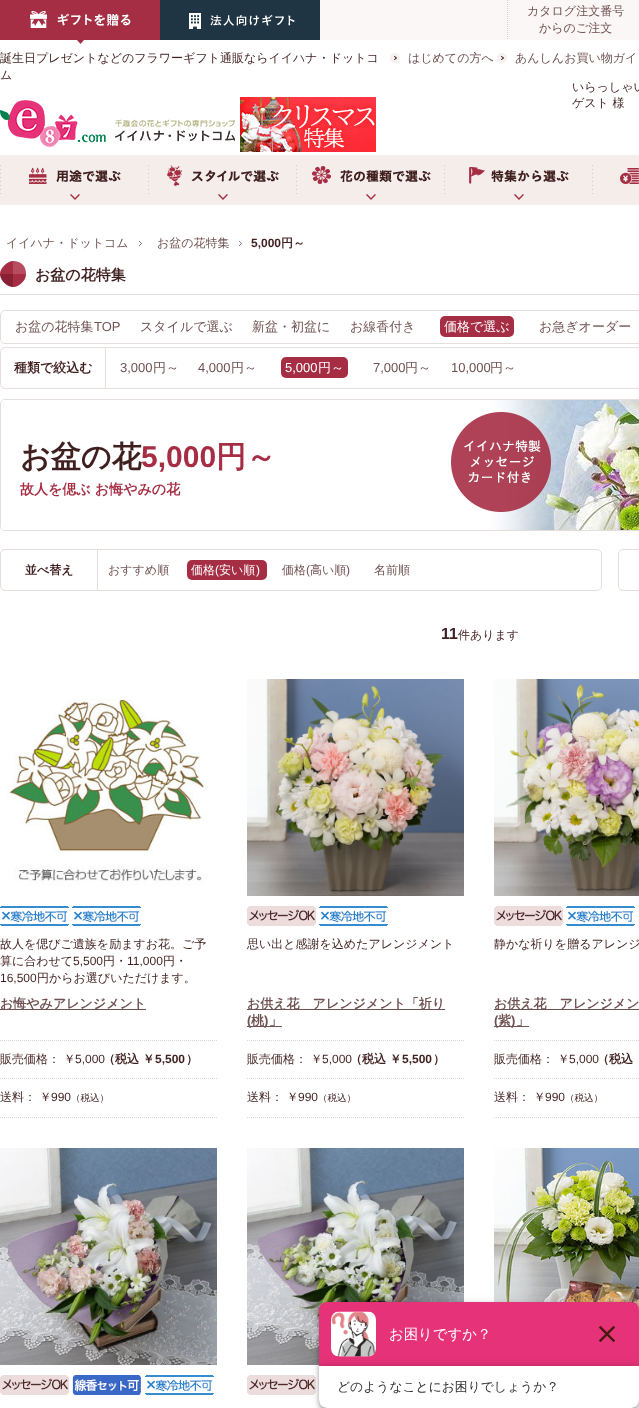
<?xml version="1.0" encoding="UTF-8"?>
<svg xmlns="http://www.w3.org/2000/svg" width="639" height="1408">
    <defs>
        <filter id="blur1" x="-50%" y="-200%" width="200%" height="500%"><feGaussianBlur stdDeviation="2"/></filter>
        <filter id="blur2" x="-50%" y="-200%" width="200%" height="500%"><feGaussianBlur stdDeviation="5"/></filter>
        <filter id="blur3" x="-50%" y="-200%" width="200%" height="500%"><feGaussianBlur stdDeviation="2.5"/></filter>
    </defs>
    <rect width="100%" height="100%" fill="#FFFFFF"/>
    <rect x="320" y="0" width="319" height="40" fill="#FBF7F7"/>
    <image x="0" y="0" width="160" height="44" href="img_01.png"/>
    <image x="160" y="0" width="160" height="40" href="img_02.png"/>
    <path d="M 507.5 0 V 40" fill="none" stroke="#D6D2D2" stroke-dasharray="1 1"/>
    <text x="527" y="15" font-family="WenQuanYi Zen Hei" font-size="12" font-weight="500" fill="#705252">カタログ注文番号</text>
    <text x="539" y="32" font-family="WenQuanYi Zen Hei" font-size="12" font-weight="500" fill="#705252">からのご注文</text>
    <text font-family="WenQuanYi Zen Hei" font-size="12" font-weight="500" fill="#401F1F">
        <tspan x="0" y="62">誕生日プレゼントなどのフラワーギフト通販ならイイハナ・ドットコ</tspan>
        <tspan x="0" y="79">ム</tspan>
    </text>
    <image x="0" y="100" width="235" height="47" href="img_03.png"/>
    <image x="240" y="97" width="136" height="55" href="img_04.png"/>
    <image x="390" y="53" width="10" height="10" href="img_05.png"/>
    <text x="408" y="62" font-family="WenQuanYi Zen Hei" font-size="12" font-weight="500" fill="#705252">はじめての方へ</text>
    <image x="497" y="53" width="10" height="10" href="img_05.png"/>
    <text x="515" y="62" font-family="WenQuanYi Zen Hei" font-size="12" font-weight="500" fill="#705252">あんしんお買い物ガイ</text>
    <text font-family="WenQuanYi Zen Hei" font-size="12" font-weight="500" fill="#401F1F">
        <tspan x="572" y="91">いらっしゃい</tspan>
        <tspan x="572" y="107">ゲスト 様</tspan>
    </text>
    <rect x="0" y="155" width="639" height="50" fill="#F4EDEA"/>
    <image x="0" y="165" width="121" height="35" href="img_06.png"/>
    <image x="148" y="165" width="131" height="35" href="img_07.png"/>
    <image x="296" y="165" width="135" height="35" href="img_08.png"/>
    <image x="444" y="165" width="125" height="35" href="img_09.png"/>
    <image x="592" y="165" width="47" height="29" href="img_10.png"/>
    <text x="6" y="247" font-family="WenQuanYi Zen Hei" font-size="12" font-weight="500" fill="#705252">イイハナ・ドットコム</text>
    <image x="139" y="241" width="3" height="5" href="img_11.png"/>
    <text x="157" y="247" font-family="WenQuanYi Zen Hei" font-size="12" font-weight="500" fill="#705252">お盆の花特集</text>
    <image x="239" y="241" width="3" height="5" href="img_11.png"/>
    <text x="251" y="247" font-family="Liberation Sans" font-size="12" font-weight="700" fill="#401F1F">5,000</text>
    <text x="281" y="247" font-family="WenQuanYi Zen Hei" font-size="12" font-weight="700" fill="#401F1F">円～</text>
    <image x="0" y="261" width="26" height="26" href="img_12.png"/>
    <rect x="0" y="294" width="639" height="1" fill="#E5DDDA"/>
    <text x="35" y="280" font-family="WenQuanYi Zen Hei" font-size="15" font-weight="700" fill="#401F1F">お盆の花特集</text>
    <rect x="0.5" y="310.5" width="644" height="33" rx="4.5" fill="none" stroke="#E5DDDA"/>
    <text x="15" y="331" font-family="WenQuanYi Zen Hei" font-size="13" font-weight="500" fill="#705252">お盆の花特集</text>
    <text x="94" y="331" font-family="Liberation Sans" font-size="13" fill="#705252">TOP</text>
    <text x="140" y="331" font-family="WenQuanYi Zen Hei" font-size="13" font-weight="500" fill="#705252">スタイルで選ぶ</text>
    <text x="252" y="331" font-family="WenQuanYi Zen Hei" font-size="13" font-weight="500" fill="#705252">新盆・初盆に</text>
    <text x="350" y="331" font-family="WenQuanYi Zen Hei" font-size="13" font-weight="500" fill="#705252">お線香付き</text>
    <rect x="440" y="316" width="74" height="21" rx="5" fill="#A62E44"/>
    <text x="444" y="331" font-family="WenQuanYi Zen Hei" font-size="13" font-weight="500" fill="#FFFFFF">価格で選ぶ</text>
    <text x="539" y="331" font-family="WenQuanYi Zen Hei" font-size="13" font-weight="500" fill="#705252">お急ぎオーダー</text>
    <rect x="0.5" y="347.5" width="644" height="41" rx="4.5" fill="none" stroke="#E5DDDA"/>
    <text x="14" y="372" font-family="WenQuanYi Zen Hei" font-size="13" font-weight="700" fill="#401F1F">種類で絞込む</text>
    <rect x="105" y="348" width="1" height="40" fill="#E5DDDA"/>
    <text x="120" y="372" font-family="Liberation Sans" font-size="13" fill="#705252">3,000</text>
    <text x="153" y="372" font-family="WenQuanYi Zen Hei" font-size="13" font-weight="500" fill="#705252">円～</text>
    <text x="198" y="372" font-family="Liberation Sans" font-size="13" fill="#705252">4,000</text>
    <text x="231" y="372" font-family="WenQuanYi Zen Hei" font-size="13" font-weight="500" fill="#705252">円～</text>
    <rect x="281" y="357" width="67" height="21" rx="5" fill="#A62E44"/>
    <text x="285" y="372" font-family="Liberation Sans" font-size="13" fill="#FFFFFF">5,000</text>
    <text x="318" y="372" font-family="WenQuanYi Zen Hei" font-size="13" font-weight="500" fill="#FFFFFF">円～</text>
    <text x="373" y="372" font-family="Liberation Sans" font-size="13" fill="#705252">7,000</text>
    <text x="405" y="372" font-family="WenQuanYi Zen Hei" font-size="13" font-weight="500" fill="#705252">円～</text>
    <text x="451" y="372" font-family="Liberation Sans" font-size="13" fill="#705252">10,000</text>
    <text x="490" y="372" font-family="WenQuanYi Zen Hei" font-size="13" font-weight="500" fill="#705252">円～</text>
    <rect x="0.5" y="399.5" width="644" height="131" rx="4.5" fill="none" stroke="#E5DDDA"/>
    <image x="1" y="400" width="638" height="130" href="img_13.png"/>
    <text x="20" y="467" font-family="WenQuanYi Zen Hei" font-size="30" font-weight="700" fill="#401F1F">お盆の花</text>
    <text x="141" y="467" font-family="Liberation Sans" font-size="30" font-weight="700" fill="#A62E44">5,000</text>
    <text x="216" y="467" font-family="WenQuanYi Zen Hei" font-size="30" font-weight="700" fill="#A62E44">円～</text>
    <image x="451" y="412" width="100" height="100" href="img_14.png"/>
    <text x="20" y="494" font-family="WenQuanYi Zen Hei" font-size="14" font-weight="700" fill="#A62E44">故人を偲ぶ お悔やみの花</text>
    <rect x="0.5" y="549.5" width="601" height="41" rx="4.5" fill="none" stroke="#E5DDDA"/>
    <text x="25" y="574" font-family="WenQuanYi Zen Hei" font-size="12" font-weight="700" fill="#401F1F">並べ替え</text>
    <rect x="97" y="550" width="1" height="40" fill="#E5DDDA"/>
    <text x="108" y="574" font-family="WenQuanYi Zen Hei" font-size="12" font-weight="500" fill="#705252">おすすめ順</text>
    <rect x="187" y="560" width="80" height="20" rx="5" fill="#A62E44"/>
    <text x="191" y="574" font-family="WenQuanYi Zen Hei" font-size="12" font-weight="500" fill="#FFFFFF">価格</text>
    <text x="215" y="574" font-family="Liberation Sans" font-size="12" fill="#FFFFFF">(</text>
    <text x="219" y="574" font-family="WenQuanYi Zen Hei" font-size="12" font-weight="500" fill="#FFFFFF">安い順</text>
    <text x="256" y="574" font-family="Liberation Sans" font-size="12" fill="#FFFFFF">)</text>
    <text x="282" y="574" font-family="WenQuanYi Zen Hei" font-size="12" font-weight="500" fill="#705252">価格</text>
    <text x="306" y="574" font-family="Liberation Sans" font-size="12" fill="#705252">(</text>
    <text x="310" y="574" font-family="WenQuanYi Zen Hei" font-size="12" font-weight="500" fill="#705252">高い順</text>
    <text x="346" y="574" font-family="Liberation Sans" font-size="12" fill="#705252">)</text>
    <text x="374" y="574" font-family="WenQuanYi Zen Hei" font-size="12" font-weight="500" fill="#705252">名前順</text>
    <rect x="618.5" y="549.5" width="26" height="41" rx="4.5" fill="none" stroke="#E5DDDA"/>
    <text x="441" y="639" font-family="Liberation Sans" font-size="16" font-weight="700" fill="#401F1F">11</text>
    <text x="458" y="639" font-family="WenQuanYi Zen Hei" font-size="12" font-weight="500" fill="#401F1F">件あります</text>
    <image x="0" y="679" width="217" height="217" href="img_15.png"/>
    <image x="0" y="906" width="69" height="20" href="img_16.png"/>
    <image x="72" y="906" width="69" height="20" href="img_16.png"/>
    <text font-family="WenQuanYi Zen Hei" font-size="12" font-weight="500" fill="#401F1F">
        <tspan x="0" y="948">故人を偲びご遺族を励ますお花。ご予</tspan>
        <tspan x="0" y="965">算に合わせて</tspan>
    </text>
    <text x="73" y="965" font-family="Liberation Sans" font-size="12" fill="#401F1F">5,500</text>
    <text x="103" y="965" font-family="WenQuanYi Zen Hei" font-size="12" font-weight="500" fill="#401F1F">円・</text>
    <text x="127" y="965" font-family="Liberation Sans" font-size="12" fill="#401F1F">11,000</text>
    <text x="163" y="965" font-family="WenQuanYi Zen Hei" font-size="12" font-weight="500" fill="#401F1F">円・</text>
    <text x="0" y="982" font-family="Liberation Sans" font-size="12" fill="#401F1F">16,500</text>
    <text x="37" y="982" font-family="WenQuanYi Zen Hei" font-size="12" font-weight="500" fill="#401F1F">円からお選びいただけます。</text>
    <path d="M 0 1040.5 H 217" fill="none" stroke="#D9D9D9" stroke-dasharray="1 1"/>
    <rect x="0" y="1009" width="146" height="1" fill="#705252"/>
    <text x="0" y="1008" font-family="WenQuanYi Zen Hei" font-size="13" font-weight="700" fill="#705252">お悔やみアレンジメント</text>
    <path d="M 0 1078.5 H 217" fill="none" stroke="#D9D9D9" stroke-dasharray="1 1"/>
    <text x="0" y="1063" font-family="WenQuanYi Zen Hei" font-size="12" font-weight="500" fill="#401F1F">販売価格： ￥</text>
    <text x="75" y="1063" font-family="Liberation Sans" font-size="12" fill="#401F1F">5,000</text>
    <text x="103" y="1063" font-family="WenQuanYi Zen Hei" font-size="12" font-weight="700" fill="#401F1F">（税込 ￥</text>
    <text x="155" y="1063" font-family="Liberation Sans" font-size="12" font-weight="700" fill="#401F1F">5,500</text>
    <text x="186" y="1063" font-family="WenQuanYi Zen Hei" font-size="12" font-weight="700" fill="#401F1F">）</text>
    <path d="M 0 1117.5 H 217" fill="none" stroke="#D9D9D9" stroke-dasharray="1 1"/>
    <text x="0" y="1101" font-family="WenQuanYi Zen Hei" font-size="12" font-weight="500" fill="#401F1F">送料： ￥</text>
    <text x="51" y="1101" font-family="Liberation Sans" font-size="12" fill="#401F1F">990</text>
    <text x="71" y="1101" font-family="WenQuanYi Zen Hei" font-size="9.5" font-weight="500" fill="#401F1F">（税込）</text>
    <image x="247" y="679" width="217" height="217" href="img_17.png"/>
    <image x="247" y="906" width="69" height="20" href="img_18.png"/>
    <image x="319" y="906" width="69" height="20" href="img_16.png"/>
    <text x="247" y="948" font-family="WenQuanYi Zen Hei" font-size="12" font-weight="500" fill="#401F1F">思い出と感謝を込めたアレンジメント</text>
    <path d="M 247 1040.5 H 464" fill="none" stroke="#D9D9D9" stroke-dasharray="1 1"/>
    <rect x="247" y="1009" width="198" height="1" fill="#705252"/>
    <text x="247" y="1008" font-family="WenQuanYi Zen Hei" font-size="13" font-weight="700" fill="#705252">お供え花　アレンジメント「祈り</text>
    <rect x="247" y="1026" width="35" height="1" fill="#705252"/>
    <text x="247" y="1025" font-family="Liberation Sans" font-size="13" font-weight="700" fill="#705252">(</text>
    <text x="251" y="1025" font-family="WenQuanYi Zen Hei" font-size="13" font-weight="700" fill="#705252">桃</text>
    <text x="264" y="1025" font-family="Liberation Sans" font-size="13" font-weight="700" fill="#705252">)</text>
    <text x="269" y="1025" font-family="WenQuanYi Zen Hei" font-size="13" font-weight="700" fill="#705252">」</text>
    <path d="M 247 1078.5 H 464" fill="none" stroke="#D9D9D9" stroke-dasharray="1 1"/>
    <text x="247" y="1063" font-family="WenQuanYi Zen Hei" font-size="12" font-weight="500" fill="#401F1F">販売価格： ￥</text>
    <text x="322" y="1063" font-family="Liberation Sans" font-size="12" fill="#401F1F">5,000</text>
    <text x="350" y="1063" font-family="WenQuanYi Zen Hei" font-size="12" font-weight="700" fill="#401F1F">（税込 ￥</text>
    <text x="402" y="1063" font-family="Liberation Sans" font-size="12" font-weight="700" fill="#401F1F">5,500</text>
    <text x="433" y="1063" font-family="WenQuanYi Zen Hei" font-size="12" font-weight="700" fill="#401F1F">）</text>
    <path d="M 247 1117.5 H 464" fill="none" stroke="#D9D9D9" stroke-dasharray="1 1"/>
    <text x="247" y="1101" font-family="WenQuanYi Zen Hei" font-size="12" font-weight="500" fill="#401F1F">送料： ￥</text>
    <text x="298" y="1101" font-family="Liberation Sans" font-size="12" fill="#401F1F">990</text>
    <text x="318" y="1101" font-family="WenQuanYi Zen Hei" font-size="9.5" font-weight="500" fill="#401F1F">（税込）</text>
    <image x="494" y="679" width="145" height="217" href="img_19.png"/>
    <image x="494" y="906" width="69" height="20" href="img_18.png"/>
    <image x="566" y="906" width="69" height="20" href="img_16.png"/>
    <text x="494" y="948" font-family="WenQuanYi Zen Hei" font-size="12" font-weight="500" fill="#401F1F">静かな祈りを贈るアレンジ</text>
    <path d="M 494 1040.5 H 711" fill="none" stroke="#D9D9D9" stroke-dasharray="1 1"/>
    <rect x="494" y="1009" width="145" height="1" fill="#705252"/>
    <text x="494" y="1008" font-family="WenQuanYi Zen Hei" font-size="13" font-weight="700" fill="#705252">お供え花　アレンジメン</text>
    <rect x="494" y="1026" width="35" height="1" fill="#705252"/>
    <text x="494" y="1025" font-family="Liberation Sans" font-size="13" font-weight="700" fill="#705252">(</text>
    <text x="498" y="1025" font-family="WenQuanYi Zen Hei" font-size="13" font-weight="700" fill="#705252">紫</text>
    <text x="511" y="1025" font-family="Liberation Sans" font-size="13" font-weight="700" fill="#705252">)</text>
    <text x="516" y="1025" font-family="WenQuanYi Zen Hei" font-size="13" font-weight="700" fill="#705252">」</text>
    <path d="M 494 1078.5 H 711" fill="none" stroke="#D9D9D9" stroke-dasharray="1 1"/>
    <text x="494" y="1063" font-family="WenQuanYi Zen Hei" font-size="12" font-weight="500" fill="#401F1F">販売価格： ￥</text>
    <text x="569" y="1063" font-family="Liberation Sans" font-size="12" fill="#401F1F">5,000</text>
    <text x="597" y="1063" font-family="WenQuanYi Zen Hei" font-size="12" font-weight="700" fill="#401F1F">（税込</text>
    <path d="M 494 1117.5 H 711" fill="none" stroke="#D9D9D9" stroke-dasharray="1 1"/>
    <text x="494" y="1101" font-family="WenQuanYi Zen Hei" font-size="12" font-weight="500" fill="#401F1F">送料： ￥</text>
    <text x="545" y="1101" font-family="Liberation Sans" font-size="12" fill="#401F1F">990</text>
    <text x="565" y="1101" font-family="WenQuanYi Zen Hei" font-size="9.5" font-weight="500" fill="#401F1F">（税込）</text>
    <image x="0" y="1148" width="217" height="217" href="img_20.png"/>
    <image x="0" y="1375" width="69" height="20" href="img_18.png"/>
    <image x="72" y="1375" width="69" height="20" href="img_21.png"/>
    <image x="145" y="1375" width="69" height="20" href="img_16.png"/>
    <image x="247" y="1148" width="217" height="217" href="img_22.png"/>
    <image x="247" y="1375" width="69" height="20" href="img_18.png"/>
    <image x="494" y="1148" width="145" height="162" href="img_23.png"/>
    <rect x="320" y="1305" width="318" height="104" rx="7" fill="#000000" fill-opacity="0.3" filter="url(#blur1)"/>
    <rect x="319" y="1303" width="320" height="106" rx="8" fill="#000000" fill-opacity="0.12" filter="url(#blur2)"/>
    <rect x="319" y="1306" width="320" height="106" rx="8" fill="#000000" fill-opacity="0.14" filter="url(#blur3)"/>
    <image x="319" y="1302" width="320" height="106" href="img_24.png"/>
</svg>
